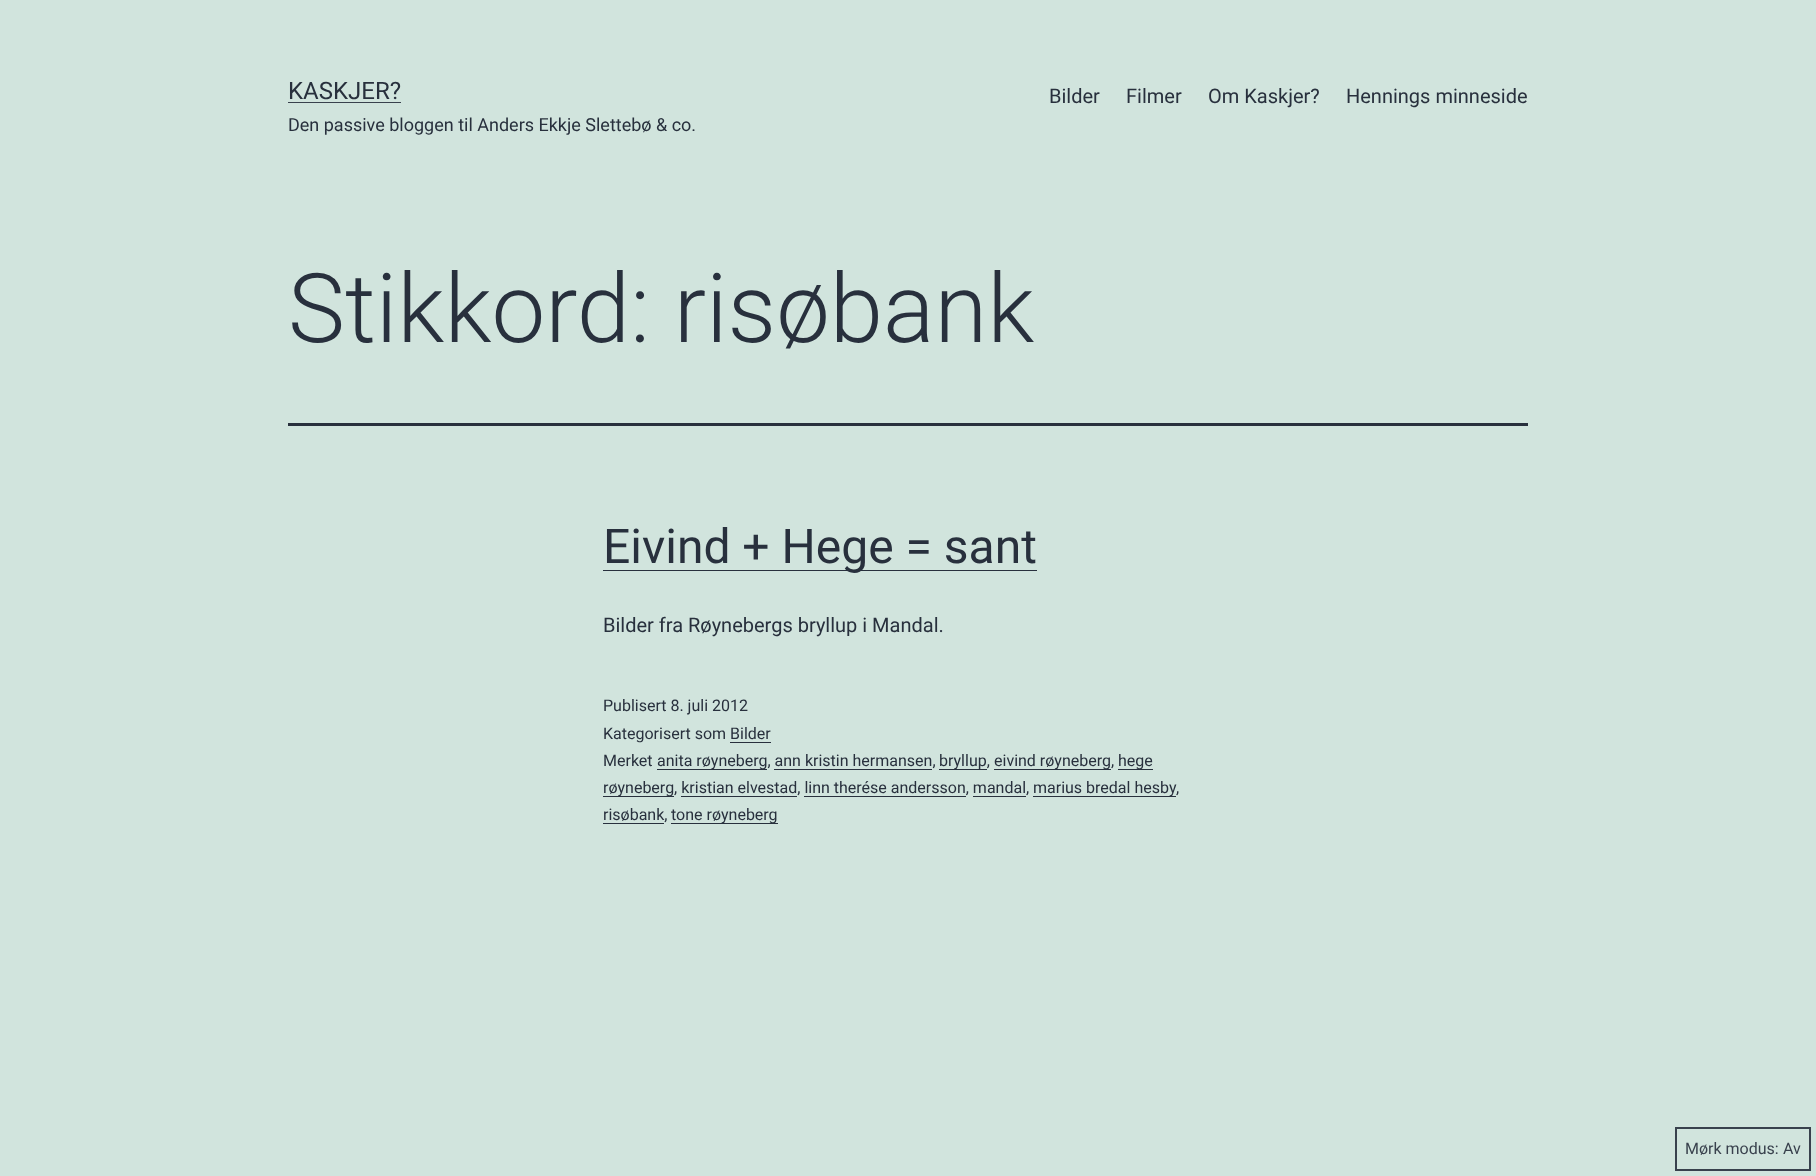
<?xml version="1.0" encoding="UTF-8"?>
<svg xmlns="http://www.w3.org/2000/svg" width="1816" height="1176">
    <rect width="100%" height="100%" fill="#D1E4DD"/>
    <text x="288" y="99" font-family="Roboto" font-size="24" fill="#28303D">KASKJER?</text>
    <rect x="288" y="102" width="113" height="1" fill="#39414D"/>
    <text x="288" y="131" font-family="Roboto" font-size="18" fill="#28303D">Den passive bloggen til Anders Ekkje Slettebø &amp; co.</text>
    <text x="1049" y="103" font-family="Roboto" font-size="20" fill="#28303D">Bilder</text>
    <text x="1126" y="103" font-family="Roboto" font-size="20" fill="#28303D">Filmer</text>
    <text x="1208" y="103" font-family="Roboto" font-size="20" fill="#28303D">Om Kaskjer?</text>
    <text x="1346" y="103" font-family="Roboto" font-size="20" fill="#28303D">Hennings minneside</text>
    <rect x="288" y="423" width="1240" height="3" fill="#28303D"/>
    <text x="288" y="342" font-family="Roboto" font-size="96" font-weight="300" fill="#28303D">Stikkord: risøbank</text>
    <rect x="603" y="570" width="434" height="1" fill="#28303D"/>
    <text x="603" y="563" font-family="Roboto" font-size="48" fill="#28303D">Eivind + Hege = sant</text>
    <text x="603" y="632" font-family="Roboto" font-size="20" fill="#28303D">Bilder fra Røynebergs bryllup i Mandal.</text>
    <text font-family="Roboto" font-size="16" fill="#28303D">
        <tspan x="603" y="711">Publisert 8. juli 2012</tspan>
        <tspan x="603" y="739">Kategorisert som Bilder</tspan>
    </text>
    <rect x="730" y="742" width="41" height="1" fill="#28303D"/>
    <text x="603" y="766" font-family="Roboto" font-size="16" fill="#28303D">Merket</text>
    <rect x="657" y="769" width="110" height="1" fill="#28303D"/>
    <text x="657" y="766" font-family="Roboto" font-size="16" fill="#28303D">anita røyneberg, ann kristin hermansen,</text>
    <rect x="939" y="769" width="48" height="1" fill="#28303D"/>
    <text x="939" y="766" font-family="Roboto" font-size="16" fill="#28303D">bryllup,</text>
    <rect x="994" y="769" width="117" height="1" fill="#28303D"/>
    <text x="994" y="766" font-family="Roboto" font-size="16" fill="#28303D">eivind røyneberg,</text>
    <rect x="1118" y="769" width="35" height="1" fill="#28303D"/>
    <text x="1118" y="766" font-family="Roboto" font-size="16" fill="#28303D">hege</text>
    <rect x="774" y="769" width="158" height="1" fill="#28303D"/>
    <rect x="603" y="796" width="71" height="1" fill="#28303D"/>
    <text x="603" y="793" font-family="Roboto" font-size="16" fill="#28303D">røyneberg, kristian elvestad, linn therése andersson, mandal,</text>
    <rect x="1033" y="796" width="143" height="1" fill="#28303D"/>
    <text x="1033" y="793" font-family="Roboto" font-size="16" fill="#28303D">marius bredal hesby</text>
    <text x="1176" y="793" font-family="Roboto" font-size="16" fill="#28303D">,</text>
    <rect x="681" y="796" width="116" height="1" fill="#28303D"/>
    <rect x="804" y="796" width="162" height="1" fill="#28303D"/>
    <rect x="973" y="796" width="53" height="1" fill="#28303D"/>
    <text x="603" y="820" font-family="Roboto" font-size="16" fill="#28303D">risøbank,</text>
    <rect x="603" y="823" width="61" height="1" fill="#28303D"/>
    <rect x="671" y="823" width="107" height="1" fill="#28303D"/>
    <text x="671" y="820" font-family="Roboto" font-size="16" fill="#28303D">tone røyneberg</text>
    <rect x="1676" y="1128" width="134" height="42" fill="none" stroke="#39414D" stroke-width="2"/>
    <text x="1685" y="1154" font-family="Roboto" font-size="16" fill="#39414D">Mørk modus:</text>
    <text x="1783" y="1154" font-family="Roboto" font-size="16" fill="#39414D">Av</text>
</svg>
